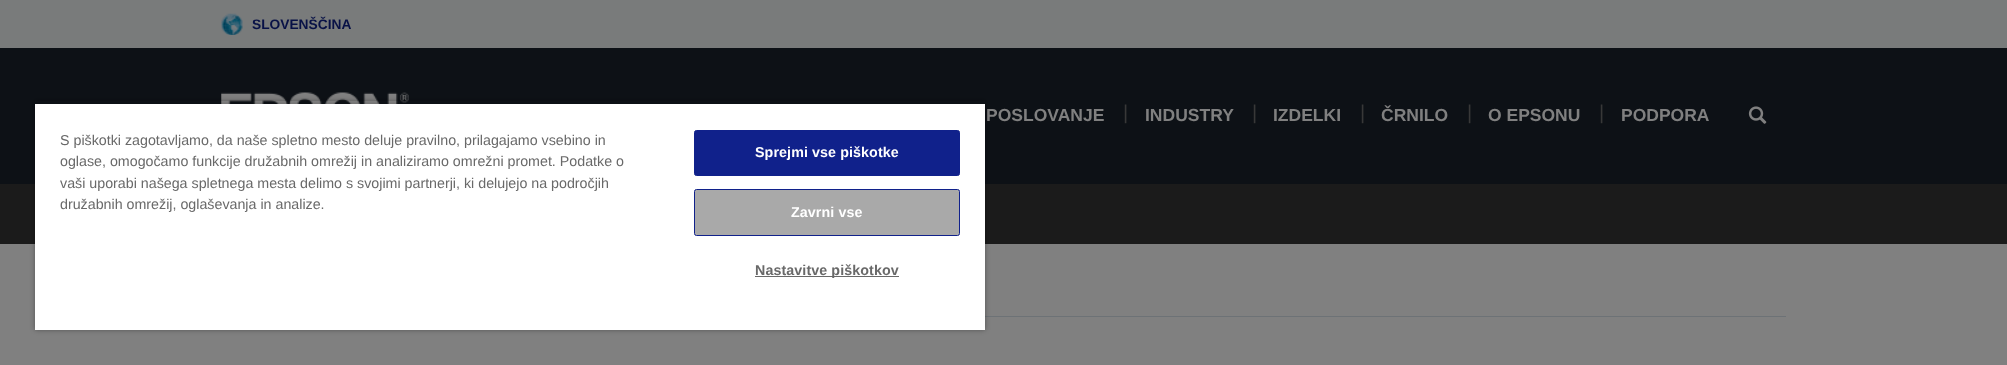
<?xml version="1.0" encoding="UTF-8"?>
<svg xmlns="http://www.w3.org/2000/svg" width="2007" height="365">
    <defs>
        <clipPath id="clip1"><path d="M 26 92 H 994 V 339 H 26 Z M 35 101 H 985 V 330 H 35 Z" clip-rule="evenodd"/></clipPath>
        <filter id="blur1" x="-50%" y="-200%" width="200%" height="500%"><feGaussianBlur stdDeviation="2.5"/></filter>
        <clipPath id="clip2"><rect x="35" y="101" width="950" height="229"/></clipPath>
    </defs>
    <rect width="100%" height="100%" fill="#808080"/>
    <rect x="0" y="0" width="2007" height="48" fill="#797B7B"/>
    <image x="221" y="13" width="22" height="22" href="img_01.png"/>
    <text x="252" y="29" font-family="Liberation Sans" font-size="13.75" font-weight="700" fill="#081146">SLOVENŠČINA</text>
    <rect x="0" y="48" width="2007" height="136" fill="#0D1116"/>
    <image x="221" y="92" width="188" height="12" href="img_02.png"/>
    <text x="986" y="121" font-family="Liberation Sans" font-size="17.5" font-weight="700" fill="#808080">POSLOVANJE</text>
    <text x="1123" y="119" font-family="Liberation Sans" font-size="20" fill="#383838">|</text>
    <text x="1145" y="121" font-family="Liberation Sans" font-size="17.5" font-weight="700" fill="#808080">INDUSTRY</text>
    <text x="1252" y="119" font-family="Liberation Sans" font-size="20" fill="#383838">|</text>
    <text x="1273" y="121" font-family="Liberation Sans" font-size="17.5" font-weight="700" fill="#808080">IZDELKI</text>
    <text x="1360" y="119" font-family="Liberation Sans" font-size="20" fill="#383838">|</text>
    <text x="1381" y="121" font-family="Liberation Sans" font-size="17.5" font-weight="700" fill="#808080">ČRNILO</text>
    <text x="1467" y="119" font-family="Liberation Sans" font-size="20" fill="#383838">|</text>
    <text x="1488" y="121" font-family="Liberation Sans" font-size="17.5" font-weight="700" fill="#808080">O EPSONU</text>
    <text x="1599" y="119" font-family="Liberation Sans" font-size="20" fill="#383838">|</text>
    <text x="1621" y="121" font-family="Liberation Sans" font-size="17.5" font-weight="700" fill="#808080">PODPORA</text>
    <image x="1748" y="106" width="19" height="18" href="img_03.png"/>
    <rect x="0" y="184" width="2007" height="60" fill="#1B1B1B"/>
    <rect x="985" y="316" width="801" height="1" fill="#6D7276"/>
    <g clip-path="url(#clip1)">
        <rect x="35" y="101" width="950" height="229" fill="#000000" fill-opacity="0.35" filter="url(#blur1)"/>
    </g>
    <g clip-path="url(#clip2)">
        <rect x="35" y="104" width="950" height="226" fill="#000000" fill-opacity="0.2" filter="url(#blur1)"/>
    </g>
    <rect x="35" y="104" width="950" height="226" fill="#FFFFFF"/>
    <text font-family="Liberation Sans" font-size="14.25" fill="#696969">
        <tspan x="60" y="145">S piškotki zagotavljamo, da naše spletno mesto deluje pravilno, prilagajamo vsebino in</tspan>
        <tspan x="60" y="166">oglase, omogočamo funkcije družabnih omrežij in analiziramo omrežni promet. Podatke o</tspan>
        <tspan x="60" y="188">vaši uporabi našega spletnega mesta delimo s svojimi partnerji, ki delujejo na področjih</tspan>
        <tspan x="60" y="209">družabnih omrežij, oglaševanja in analize.</tspan>
    </text>
    <rect x="694.5" y="130.5" width="265" height="45" rx="2" fill="#10218B" stroke="#10218B"/>
    <text x="755" y="157" font-family="Liberation Sans" font-size="14.25" font-weight="700" letter-spacing="0.1" fill="#FFFFFF">Sprejmi vse piškotke</text>
    <rect x="694.5" y="189.5" width="265" height="46" rx="2" fill="#A9A9A9" stroke="#10218B"/>
    <text x="791" y="217" font-family="Liberation Sans" font-size="14.25" font-weight="700" letter-spacing="0.1" fill="#FFFFFF">Zavrni vse</text>
    <rect x="755" y="276" width="144" height="1" fill="#696969"/>
    <text x="755" y="275" font-family="Liberation Sans" font-size="14.25" font-weight="700" letter-spacing="0.1" fill="#696969">Nastavitve piškotkov</text>
</svg>
